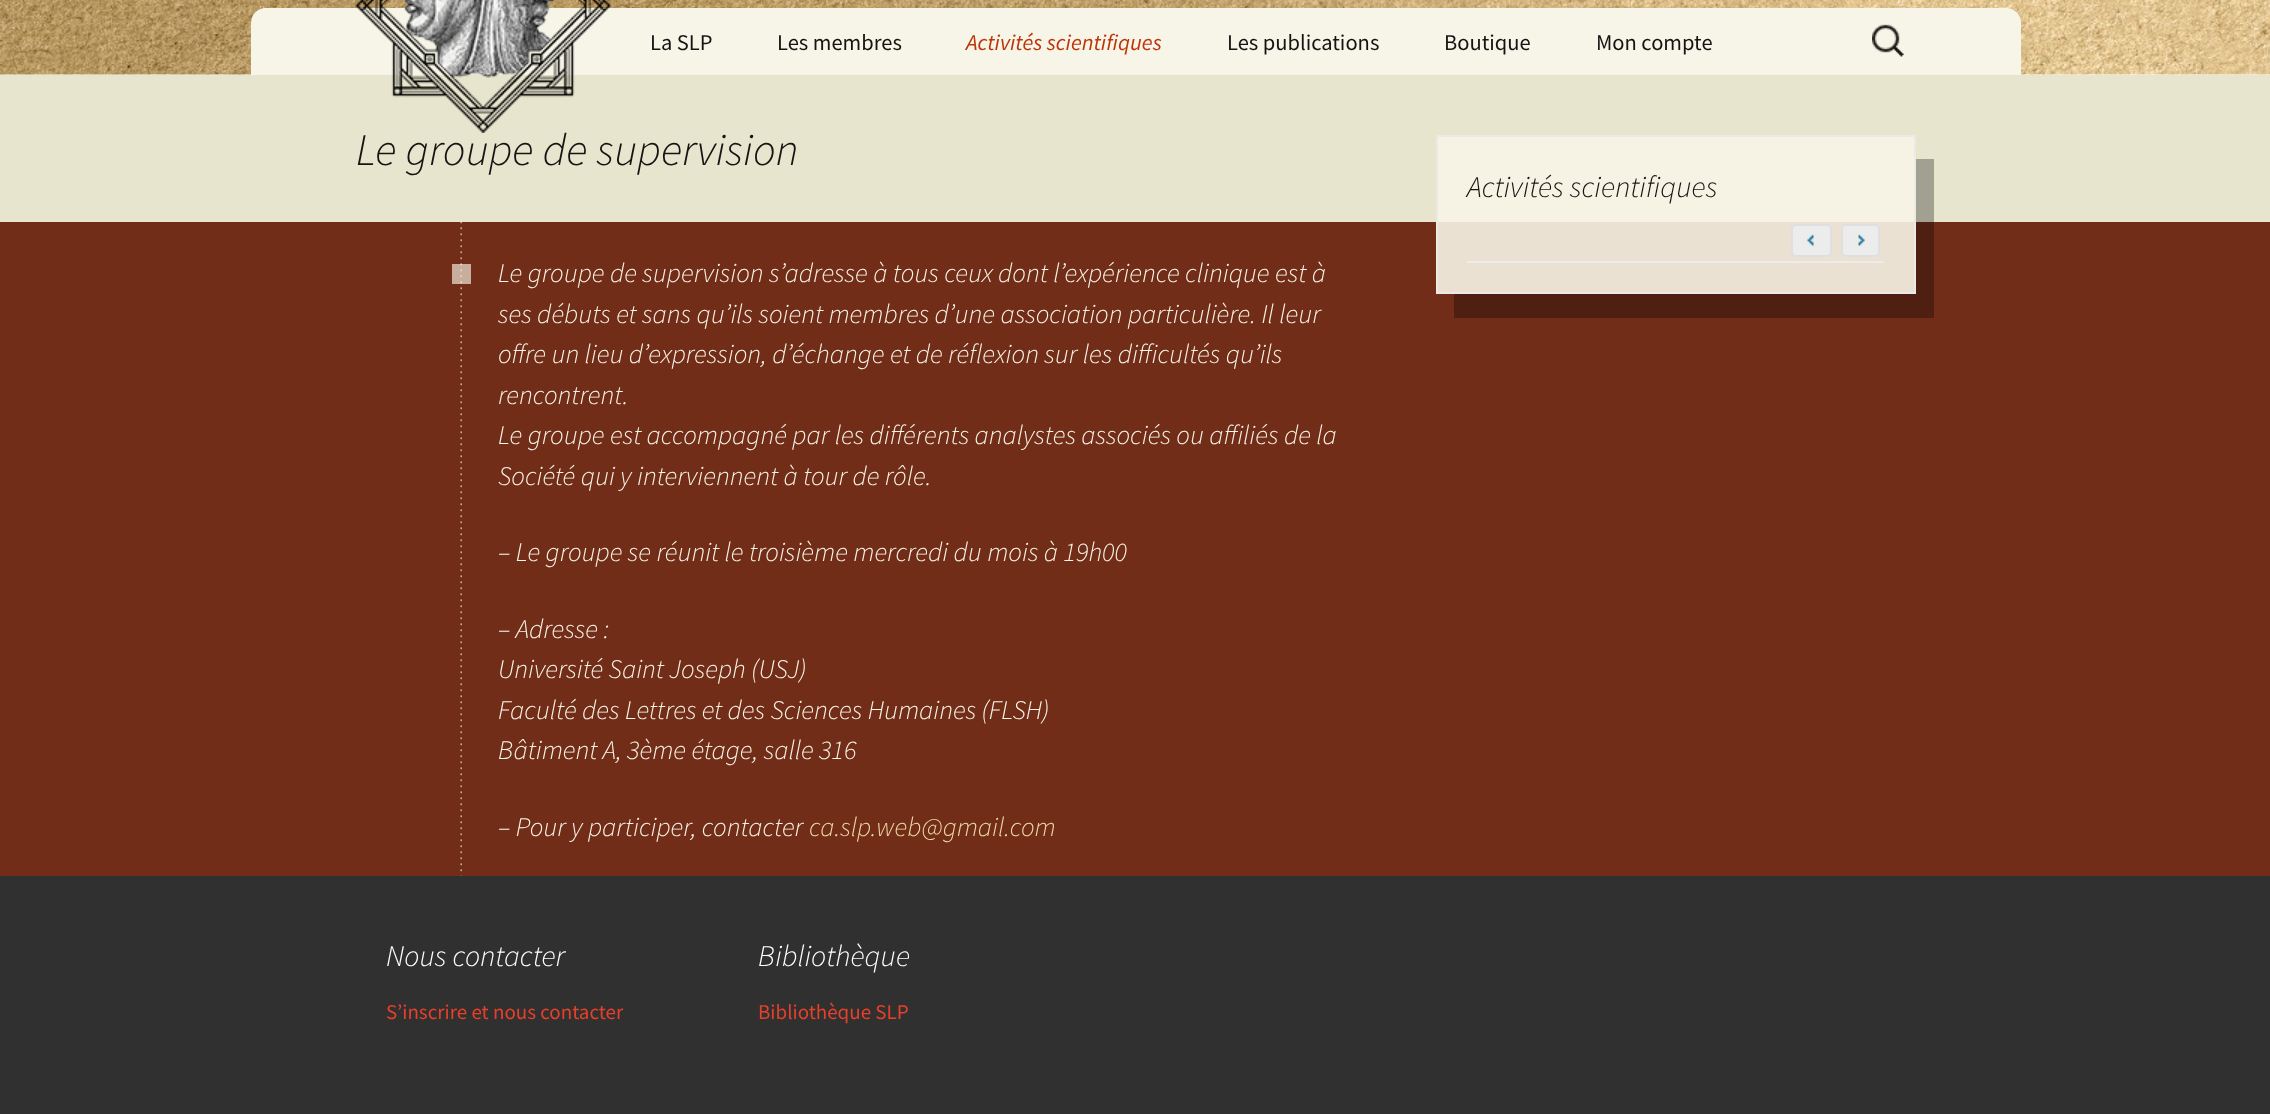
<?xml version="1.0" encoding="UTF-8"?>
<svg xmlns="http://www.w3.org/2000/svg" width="2270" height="1114">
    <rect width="100%" height="100%" fill="#FFFFFF"/>
    <image x="0" y="0" width="2270" height="75" href="img_01.png"/>
    <path d="M 266 8 H 2006 C 2014.5 8 2021 14.5 2021 23 V 75 H 251 V 23 C 251 14.5 257.5 8 266 8 Z" fill="#F7F5E7"/>
    <rect x="0" y="75" width="2270" height="147" fill="#E8E5CE"/>
    <text x="356" y="165" font-family="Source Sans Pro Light" font-size="45" font-weight="300" font-style="italic" fill="#141412">Le groupe de supervision</text>
    <image x="355" y="0" width="256" height="133" href="img_02.png"/>
    <text x="650" y="50" font-family="Source Sans Pro" font-size="22.5" fill="#141412">La SLP</text>
    <text x="777" y="50" font-family="Source Sans Pro" font-size="22.5" fill="#141412">Les membres</text>
    <text x="966" y="50" font-family="Source Sans Pro" font-size="22.5" font-style="italic" fill="#BC360A">Activités scientifiques</text>
    <text x="1227" y="50" font-family="Source Sans Pro" font-size="22.5" fill="#141412">Les publications</text>
    <text x="1444" y="50" font-family="Source Sans Pro" font-size="22.5" fill="#141412">Boutique</text>
    <text x="1596" y="50" font-family="Source Sans Pro" font-size="22.5" fill="#141412">Mon compte</text>
    <image x="1872" y="24" width="32" height="33" href="img_03.png"/>
    <rect x="1438" y="137" width="476" height="85" fill="#F6F3E5"/>
    <rect x="0" y="222" width="2270" height="654" fill="#722D19"/>
    <rect x="1438" y="222" width="476" height="70" fill="#EAE1D2"/>
    <image x="460" y="221" width="2" height="655" href="img_04.png"/>
    <rect x="452" y="264" width="19" height="20" fill="#F7F5E7" fill-opacity="0.65"/>
    <text font-family="Source Sans Pro Light" font-size="27" font-weight="300" font-style="italic" fill="#F7F5E7">
        <tspan x="498" y="282">Le groupe de supervision s’adresse à tous ceux dont l’expérience clinique est à</tspan>
        <tspan x="498" y="323">ses débuts et sans qu’ils soient membres d’une association particulière. Il leur</tspan>
        <tspan x="498" y="363">offre un lieu d’expression, d’échange et de réflexion sur les difficultés qu’ils</tspan>
        <tspan x="498" y="404">rencontrent.</tspan>
        <tspan x="498" y="444">Le groupe est accompagné par les différents analystes associés ou affiliés de la</tspan>
        <tspan x="498" y="485">Société qui y interviennent à tour de rôle.</tspan>
    </text>
    <text x="498" y="561" font-family="Source Sans Pro Light" font-size="27" font-weight="300" font-style="italic" fill="#F7F5E7">– Le groupe se réunit le troisième mercredi du mois à 19h00</text>
    <text font-family="Source Sans Pro Light" font-size="27" font-weight="300" font-style="italic" fill="#F7F5E7">
        <tspan x="498" y="638">– Adresse :</tspan>
        <tspan x="498" y="678">Université Saint Joseph (USJ)</tspan>
        <tspan x="498" y="719">Faculté des Lettres et des Sciences Humaines (FLSH)</tspan>
        <tspan x="498" y="759">Bâtiment A, 3ème étage, salle 316</tspan>
    </text>
    <text x="498" y="836" font-family="Source Sans Pro Light" font-size="27" font-weight="300" font-style="italic" fill="#F7F5E7">– Pour y participer, contacter</text>
    <text x="809" y="836" font-family="Source Sans Pro Light" font-size="27" font-weight="300" font-style="italic" fill="#EADAA6">ca.slp.web@gmail.com</text>
    <path d="M 1454 294 V 318 H 1934 V 159 H 1916 V 294 Z" fill="#000000" fill-opacity="0.3"/>
    <rect x="1437" y="136" width="478" height="157" fill="none" stroke="#ECEAE5" stroke-width="2"/>
    <text x="1467" y="197" font-family="Source Sans Pro Light" font-size="30" font-weight="300" font-style="italic" fill="#141412">Activités scientifiques</text>
    <rect x="1792" y="225" width="39" height="31" rx="4" fill="#ECECEC" stroke="#DFDFDF" stroke-width="2"/>
    <image x="1807" y="234" width="7" height="12" href="img_05.png"/>
    <rect x="1842" y="225" width="37" height="31" rx="4" fill="#ECECEC" stroke="#DFDFDF" stroke-width="2"/>
    <image x="1858" y="234" width="7" height="12" href="img_06.png"/>
    <rect x="1467" y="261" width="417" height="2" fill="#ECECEC"/>
    <rect x="0" y="876" width="2270" height="238" fill="#303030"/>
    <text x="386" y="966" font-family="Source Sans Pro Light" font-size="30" font-weight="300" font-style="italic" fill="#FFFFFF">Nous contacter</text>
    <text x="386" y="1019" font-family="Source Sans Pro" font-size="21" fill="#E6402A">S’inscrire et nous contacter</text>
    <text x="758" y="966" font-family="Source Sans Pro Light" font-size="30" font-weight="300" font-style="italic" fill="#FFFFFF">Bibliothèque</text>
    <text x="758" y="1019" font-family="Source Sans Pro" font-size="21" fill="#E6402A">Bibliothèque SLP</text>
</svg>
